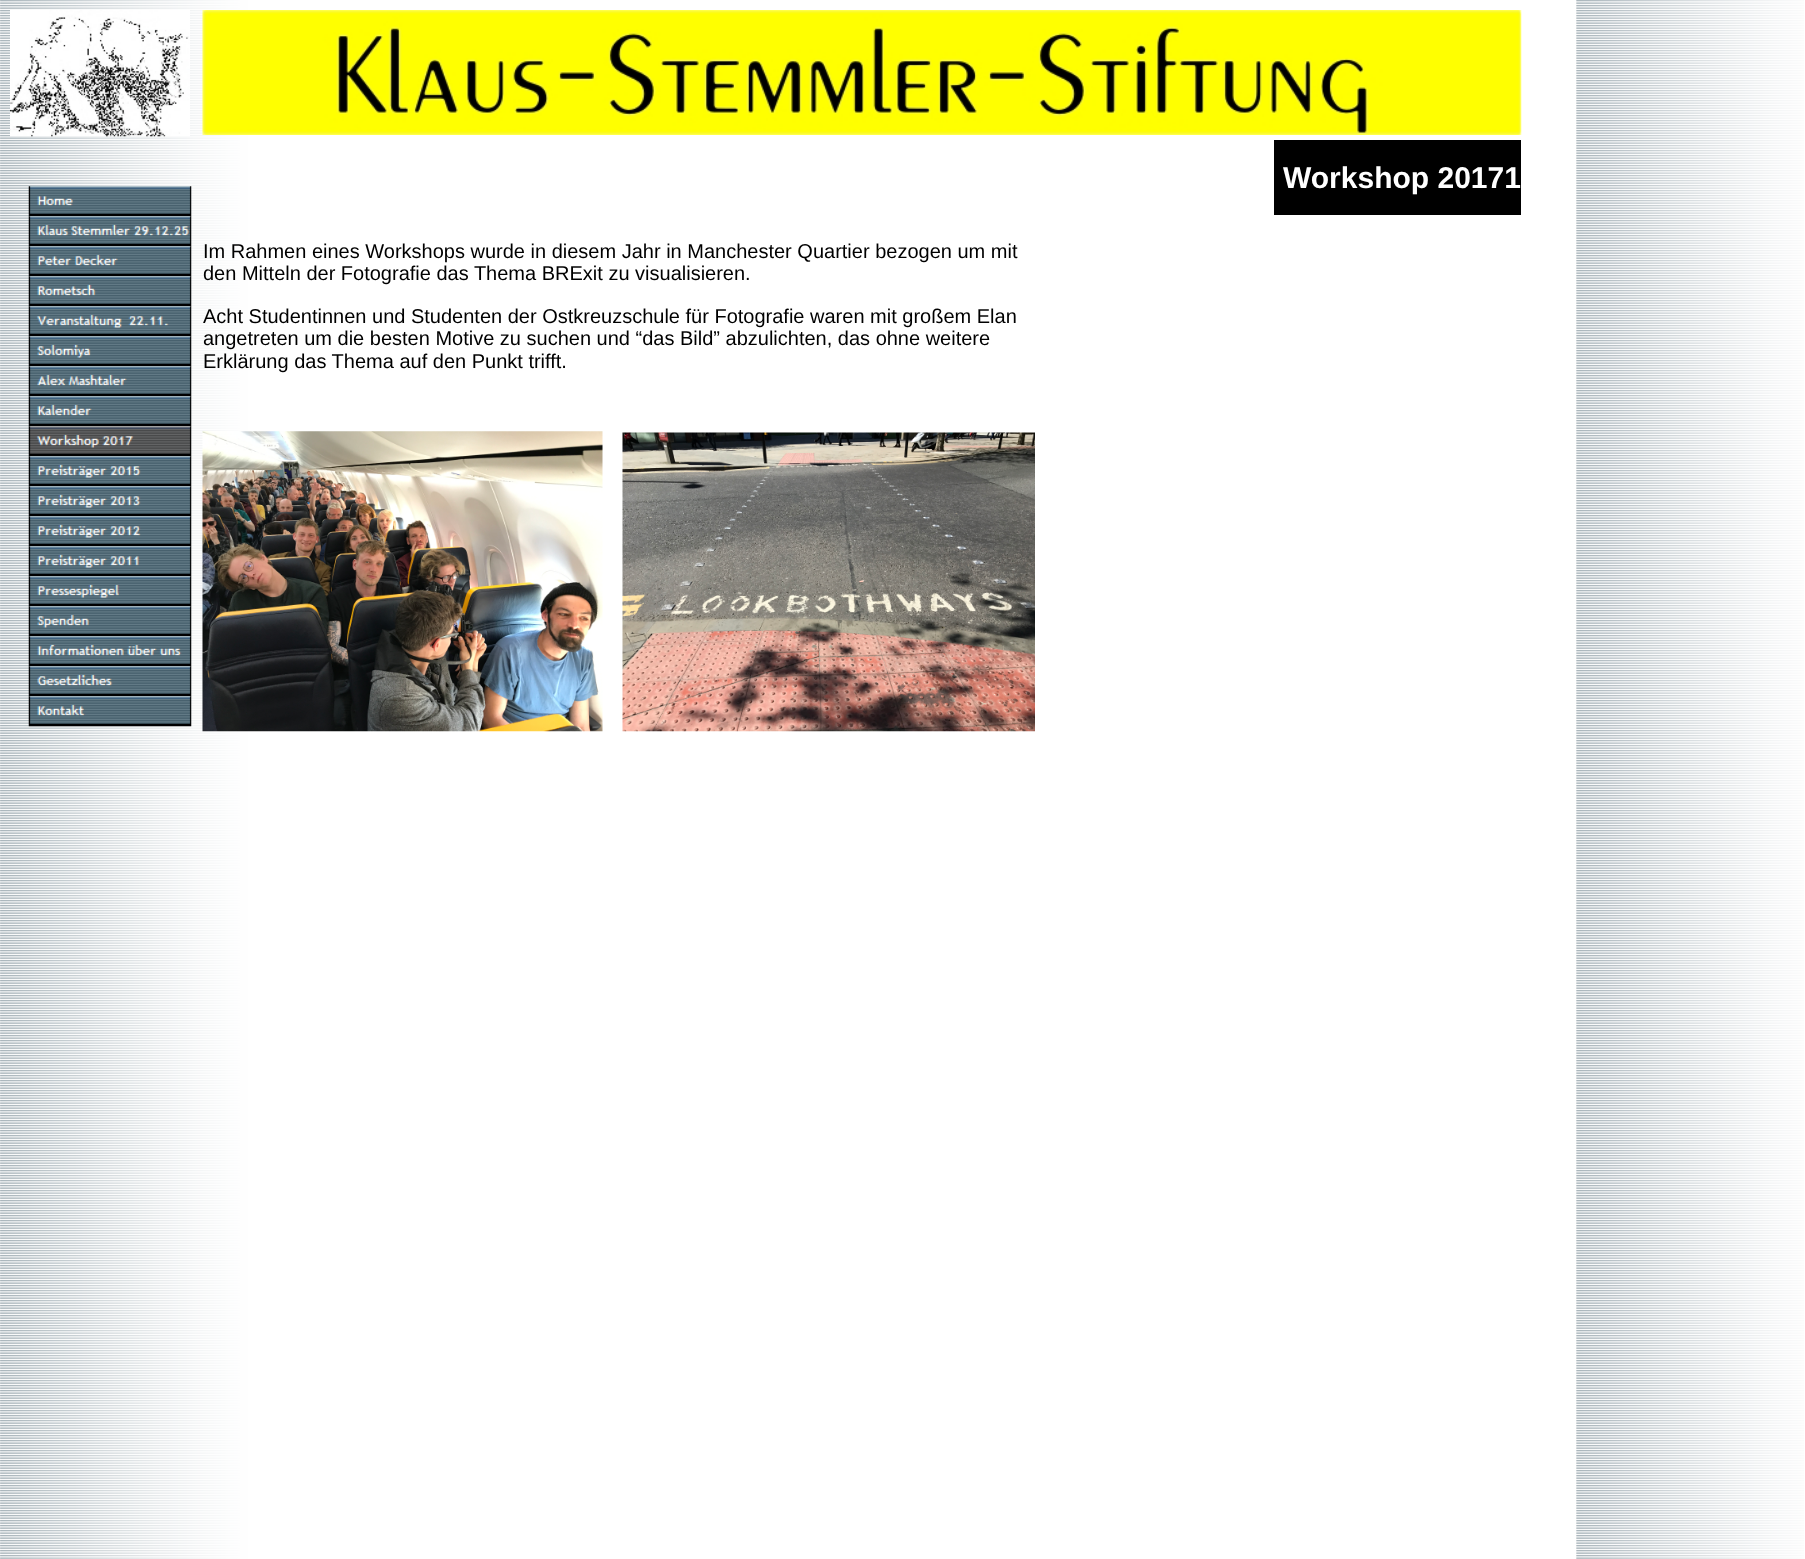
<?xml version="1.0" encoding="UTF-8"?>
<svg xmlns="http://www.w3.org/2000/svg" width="1805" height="1559">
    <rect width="100%" height="100%" fill="#FFFFFF"/>
    <image x="0" y="0" width="1804" height="1559" href="img_01.png"/>
    <image x="10" y="10" width="180" height="127" href="img_02.png"/>
    <image x="28" y="186" width="164" height="31" href="img_03.png"/>
    <image x="28" y="216" width="164" height="31" href="img_04.png"/>
    <image x="28" y="246" width="164" height="31" href="img_05.png"/>
    <image x="28" y="276" width="164" height="31" href="img_06.png"/>
    <image x="28" y="306" width="164" height="31" href="img_07.png"/>
    <image x="28" y="336" width="164" height="31" href="img_08.png"/>
    <image x="28" y="366" width="164" height="31" href="img_09.png"/>
    <image x="28" y="396" width="164" height="31" href="img_10.png"/>
    <image x="28" y="426" width="164" height="31" href="img_11.png"/>
    <image x="28" y="456" width="164" height="31" href="img_12.png"/>
    <image x="28" y="486" width="164" height="31" href="img_13.png"/>
    <image x="28" y="516" width="164" height="31" href="img_14.png"/>
    <image x="28" y="546" width="164" height="31" href="img_15.png"/>
    <image x="28" y="576" width="164" height="31" href="img_16.png"/>
    <image x="28" y="606" width="164" height="31" href="img_17.png"/>
    <image x="28" y="636" width="164" height="31" href="img_18.png"/>
    <image x="28" y="666" width="164" height="31" href="img_19.png"/>
    <image x="28" y="696" width="164" height="31" href="img_20.png"/>
    <image x="202" y="10" width="1320" height="125" href="img_21.png"/>
    <rect x="1274" y="140" width="247" height="75" fill="#000000"/>
    <text x="1283" y="188" font-family="Liberation Sans" font-size="30" font-weight="700" fill="#FFFFFF">Workshop 20171</text>
    <text font-family="Liberation Sans" font-size="20" fill="#000000">
        <tspan x="203" y="258">Im Rahmen eines Workshops wurde in diesem Jahr in Manchester Quartier bezogen um mit</tspan>
        <tspan x="203" y="280">den Mitteln der Fotografie das Thema BRExit zu visualisieren.</tspan>
    </text>
    <text font-family="Liberation Sans" font-size="20" fill="#000000">
        <tspan x="203" y="323">Acht Studentinnen und Studenten der Ostkreuzschule für Fotografie waren mit großem Elan</tspan>
        <tspan x="203" y="345">angetreten um die besten Motive zu suchen und “das Bild” abzulichten, das ohne weitere</tspan>
        <tspan x="203" y="368">Erklärung das Thema auf den Punkt trifft.</tspan>
    </text>
    <image x="202" y="431" width="401" height="301" href="img_22.png"/>
    <image x="622" y="432" width="413" height="300" href="img_23.png"/>
</svg>
